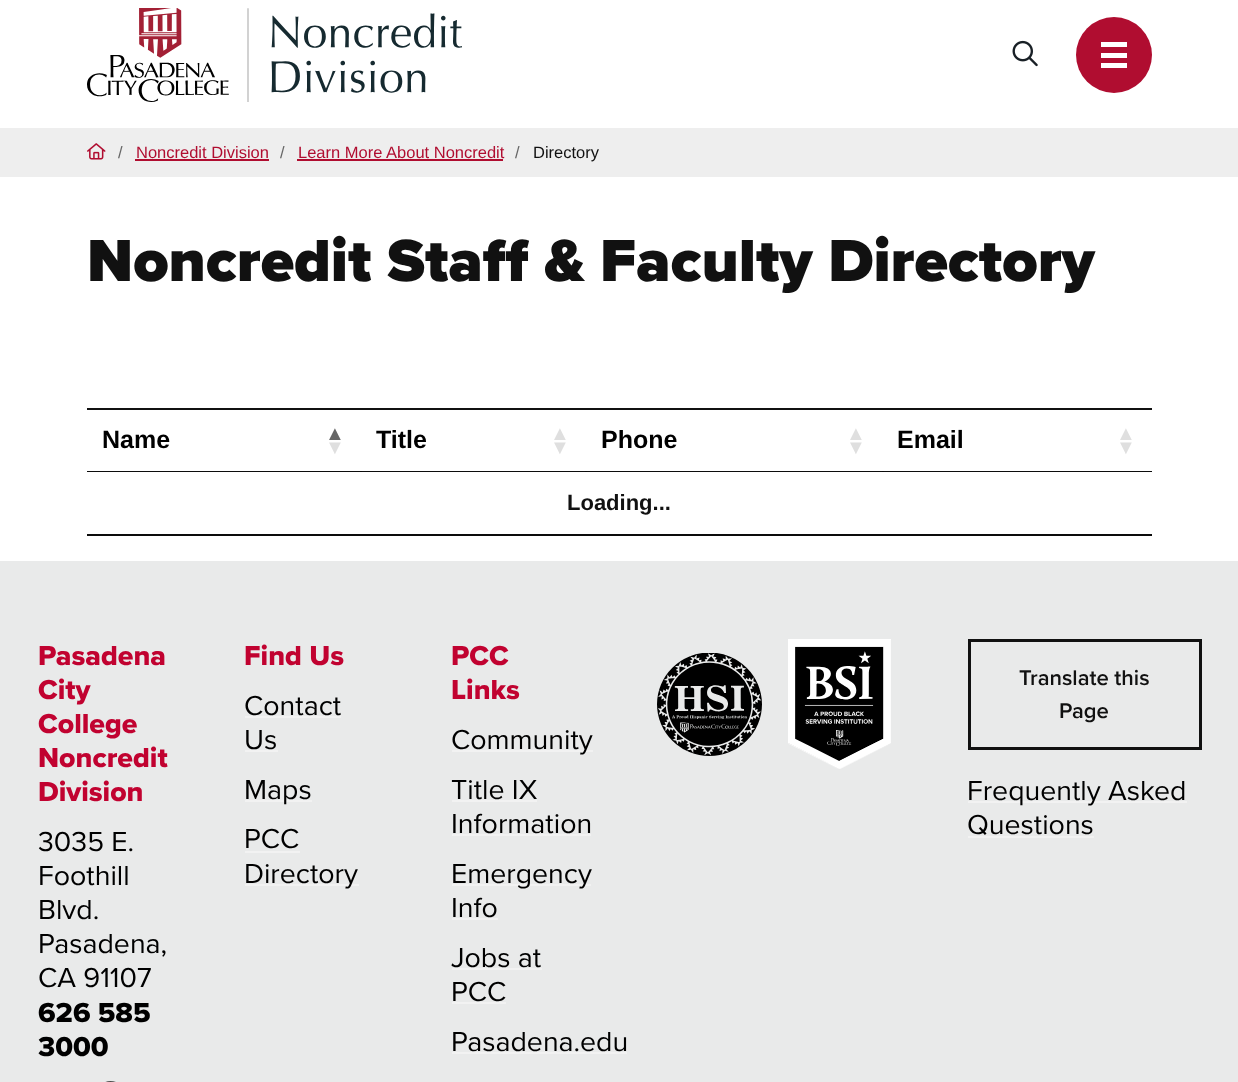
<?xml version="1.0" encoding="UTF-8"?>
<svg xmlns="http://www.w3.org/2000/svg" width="1238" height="1082">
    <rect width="100%" height="100%" fill="#FFFFFF"/>
    <image x="87" y="8" width="375" height="94" href="img_01.png"/>
    <image x="1012" y="40" width="26" height="27" href="img_02.png"/>
    <circle cx="1114" cy="55" r="38" fill="#B00D30"/>
    <rect x="1101" y="42" width="26" height="5" fill="#FFFFFF"/>
    <rect x="1101" y="53" width="26" height="5" fill="#FFFFFF"/>
    <rect x="1101" y="63" width="26" height="5" fill="#FFFFFF"/>
    <rect x="0" y="128" width="1238" height="49" fill="#EEEEEE"/>
    <image x="87" y="143" width="19" height="17" href="img_03.png"/>
    <text x="118" y="158" font-family="Liberation Sans" font-size="16.5" fill="#666666">/</text>
    <text x="136" y="158" font-family="Liberation Sans" font-size="16.5" fill="#B00D30">Noncredit Division</text>
    <rect x="135" y="159" width="134" height="2" fill="#B00D30"/>
    <text x="280" y="158" font-family="Liberation Sans" font-size="16.5" fill="#666666">/</text>
    <text x="298" y="158" font-family="Liberation Sans" font-size="16.5" fill="#B00D30">Learn More About Noncredit</text>
    <rect x="297" y="159" width="206" height="2" fill="#B00D30"/>
    <text x="515" y="158" font-family="Liberation Sans" font-size="16.5" fill="#666666">/</text>
    <text x="533" y="158" font-family="Liberation Sans" font-size="16.5" fill="#111111">Directory</text>
    <text x="87" y="281" font-family="Proxima Nova" font-size="61.5" font-weight="900" fill="#111111">Noncredit Staff &amp; Faculty Directory</text>
    <rect x="87" y="408" width="1065" height="2" fill="#111111"/>
    <rect x="87" y="471" width="1065" height="1" fill="#0C0C0C"/>
    <rect x="360" y="471" width="2" height="1" fill="#080808"/>
    <rect x="585" y="471" width="2" height="1" fill="#080808"/>
    <text x="102" y="448" font-family="Liberation Sans" font-size="25" font-weight="700" fill="#000000">Name</text>
    <text x="325" y="440" font-family="Liberation Sans" font-size="20" font-weight="700" fill="#666666">▲</text>
    <text x="325" y="454" font-family="Liberation Sans" font-size="20" font-weight="700" fill="#DFDFDF">▼</text>
    <text x="376" y="448" font-family="Liberation Sans" font-size="25" font-weight="700" fill="#000000">Title</text>
    <text font-family="Liberation Sans" font-size="20" font-weight="700" fill="#DFDFDF">
        <tspan x="550" y="440">▲</tspan>
        <tspan x="550" y="454">▼</tspan>
    </text>
    <text x="601" y="448" font-family="Liberation Sans" font-size="25" font-weight="700" fill="#000000">Phone</text>
    <text font-family="Liberation Sans" font-size="20" font-weight="700" fill="#DFDFDF">
        <tspan x="846" y="440">▲</tspan>
        <tspan x="846" y="454">▼</tspan>
    </text>
    <rect x="882" y="471" width="2" height="1" fill="#080808"/>
    <text x="897" y="448" font-family="Liberation Sans" font-size="25" font-weight="700" fill="#000000">Email</text>
    <text font-family="Liberation Sans" font-size="20" font-weight="700" fill="#DFDFDF">
        <tspan x="1116" y="440">▲</tspan>
        <tspan x="1116" y="454">▼</tspan>
    </text>
    <rect x="87" y="534" width="1065" height="2" fill="#0C0C0C"/>
    <text x="567" y="510" font-family="Liberation Sans" font-size="22" font-weight="700" fill="#111111">Loading...</text>
    <rect x="0" y="561" width="1238" height="521" fill="#E9EAEA"/>
    <text font-family="Proxima Nova" font-size="28.5" font-weight="800" fill="#C10230">
        <tspan x="38" y="665">Pasadena</tspan>
        <tspan x="38" y="699">City</tspan>
        <tspan x="38" y="733">College</tspan>
        <tspan x="38" y="767">Noncredit</tspan>
        <tspan x="38" y="801">Division</tspan>
    </text>
    <text font-family="Proxima Nova" font-size="28.5" fill="#000000">
        <tspan x="38" y="851">3035 E.</tspan>
        <tspan x="38" y="885">Foothill</tspan>
        <tspan x="38" y="919">Blvd.</tspan>
        <tspan x="38" y="953">Pasadena,</tspan>
        <tspan x="38" y="987">CA 91107</tspan>
    </text>
    <text font-family="Proxima Nova" font-size="28.5" font-weight="800" fill="#000000">
        <tspan x="38" y="1022">626 585</tspan>
        <tspan x="38" y="1056">3000</tspan>
    </text>
    <image x="105" y="1081" width="11" height="1" href="img_04.png"/>
    <text x="244" y="665" font-family="Proxima Nova" font-size="28.5" font-weight="800" fill="#C10230">Find Us</text>
    <text x="244" y="715" font-family="Proxima Nova" font-size="28.5" fill="#000000">Contact</text>
    <rect x="245" y="716" width="96" height="2" fill="#F2F2F2"/>
    <text x="244" y="749" font-family="Proxima Nova" font-size="28.5" fill="#000000">Us</text>
    <rect x="245" y="750" width="33" height="2" fill="#F2F2F2"/>
    <rect x="245" y="800" width="67" height="2" fill="#F2F2F2"/>
    <text font-family="Proxima Nova" font-size="28.5" fill="#000000">
        <tspan x="244" y="799">Maps</tspan>
        <tspan x="244" y="848">PCC</tspan>
    </text>
    <rect x="245" y="851" width="55" height="2" fill="#F2F2F2"/>
    <rect x="245" y="884" width="114" height="2" fill="#F2F2F2"/>
    <text x="244" y="883" font-family="Proxima Nova" font-size="28.5" fill="#000000">Directory</text>
    <text font-family="Proxima Nova" font-size="28.5" font-weight="800" fill="#C10230">
        <tspan x="451" y="665">PCC</tspan>
        <tspan x="451" y="699">Links</tspan>
    </text>
    <rect x="452" y="750" width="141" height="2" fill="#F2F2F2"/>
    <text font-family="Proxima Nova" font-size="28.5" fill="#000000">
        <tspan x="451" y="749">Community</tspan>
        <tspan x="451" y="799">Title IX</tspan>
    </text>
    <rect x="452" y="800" width="85" height="2" fill="#F2F2F2"/>
    <text x="451" y="833" font-family="Proxima Nova" font-size="28.5" fill="#000000">Information</text>
    <rect x="452" y="834" width="139" height="2" fill="#F2F2F2"/>
    <rect x="452" y="884" width="139" height="2" fill="#F2F2F2"/>
    <text font-family="Proxima Nova" font-size="28.5" fill="#000000">
        <tspan x="451" y="883">Emergency</tspan>
        <tspan x="451" y="917">Info</tspan>
    </text>
    <rect x="452" y="918" width="46" height="2" fill="#F2F2F2"/>
    <text x="451" y="967" font-family="Proxima Nova" font-size="28.5" fill="#000000">Jobs at</text>
    <rect x="452" y="968" width="90" height="2" fill="#F2F2F2"/>
    <text x="451" y="1001" font-family="Proxima Nova" font-size="28.5" fill="#000000">PCC</text>
    <rect x="452" y="1002" width="54" height="2" fill="#F2F2F2"/>
    <text x="451" y="1051" font-family="Proxima Nova" font-size="28.5" fill="#000000">Pasadena.edu</text>
    <rect x="452" y="1052" width="175" height="2" fill="#F2F2F2"/>
    <image x="657" y="653" width="105" height="103" href="img_05.png"/>
    <image x="788" y="639" width="103" height="130" href="img_06.png"/>
    <rect x="969.5" y="640.5" width="231" height="108" fill="none" stroke="#111111" stroke-width="3"/>
    <text x="1019" y="685" font-family="Proxima Nova" font-size="22" font-weight="600" fill="#111111">Translate this</text>
    <text x="1059" y="718" font-family="Proxima Nova" font-size="22" font-weight="600" fill="#111111">Page</text>
    <rect x="968" y="801" width="219" height="2" fill="#F2F2F2"/>
    <text font-family="Proxima Nova" font-size="28.5" fill="#000000">
        <tspan x="967" y="800">Frequently Asked</tspan>
        <tspan x="967" y="834">Questions</tspan>
    </text>
    <rect x="968" y="836" width="126" height="2" fill="#F2F2F2"/>
</svg>
